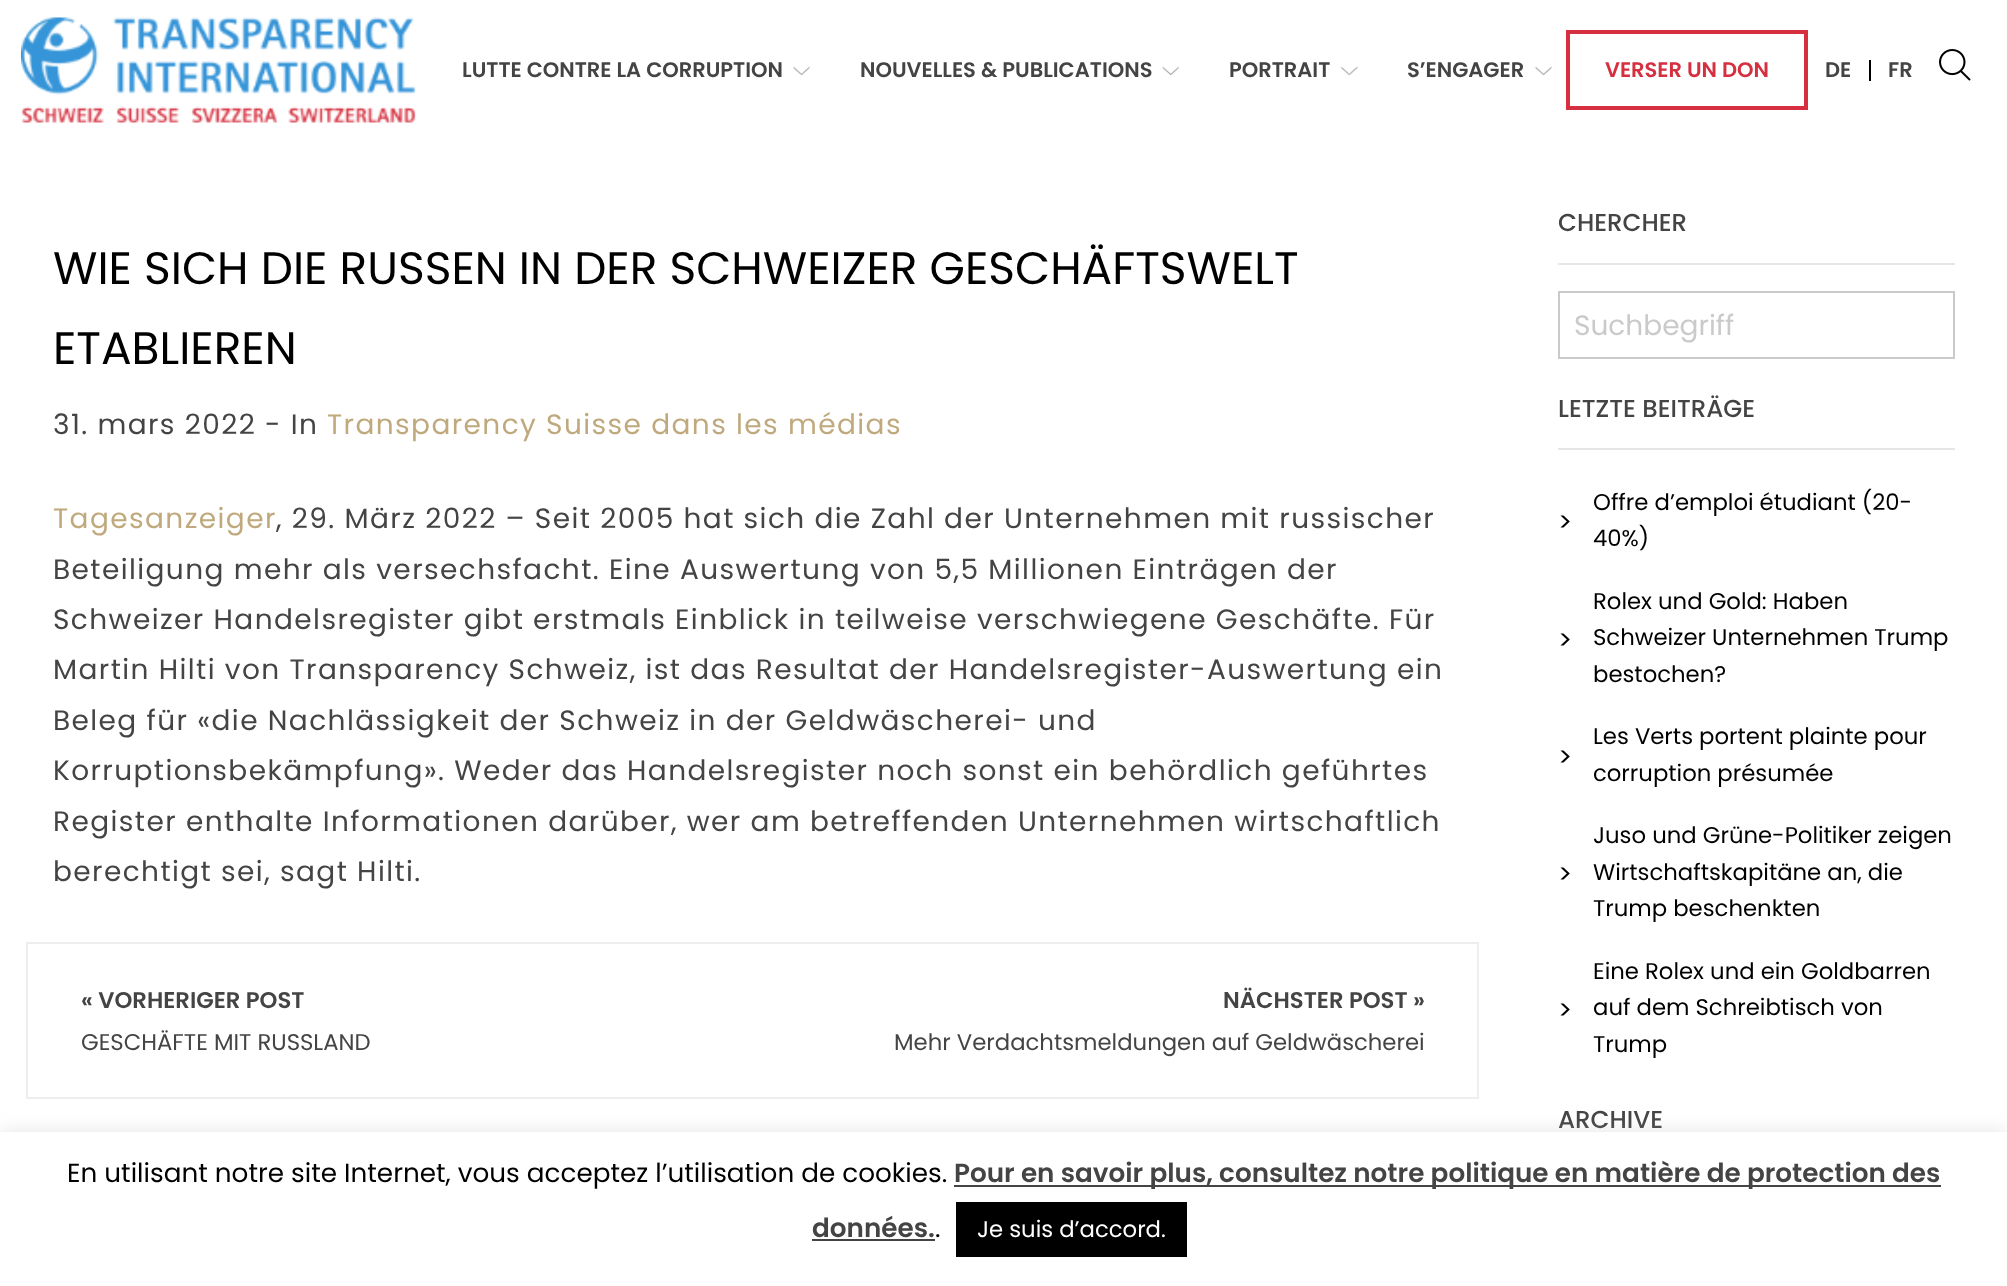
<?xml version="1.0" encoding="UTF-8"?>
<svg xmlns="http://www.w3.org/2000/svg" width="2007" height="1286">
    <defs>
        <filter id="blur1" x="-50%" y="-200%" width="200%" height="500%"><feGaussianBlur stdDeviation="9"/></filter>
    </defs>
    <rect width="100%" height="100%" fill="#FFFFFF"/>
    <image x="21" y="17" width="395" height="106" href="img_01.png"/>
    <text x="462" y="77" font-family="Poppins" font-size="21" font-weight="600" fill="#444444">LUTTE CONTRE LA CORRUPTION</text>
    <image x="793" y="66" width="17" height="10" href="img_02.png"/>
    <text x="860" y="77" font-family="Poppins" font-size="21" font-weight="600" fill="#444444">NOUVELLES &amp; PUBLICATIONS</text>
    <image x="1162" y="66" width="17" height="9" href="img_03.png"/>
    <text x="1229" y="77" font-family="Poppins" font-size="21" font-weight="600" fill="#444444">PORTRAIT</text>
    <image x="1340" y="66" width="18" height="10" href="img_04.png"/>
    <text x="1407" y="77" font-family="Poppins" font-size="21" font-weight="600" fill="#444444">S’ENGAGER</text>
    <image x="1534" y="66" width="18" height="10" href="img_05.png"/>
    <rect x="1568" y="32" width="238" height="76" fill="none" stroke="#D52F40" stroke-width="4"/>
    <text x="1605" y="77" font-family="Poppins" font-size="21" font-weight="600" fill="#D52F40">VERSER UN DON</text>
    <text x="1825" y="77" font-family="Poppins" font-size="21" font-weight="600" fill="#444444">DE</text>
    <rect x="1869" y="60" width="2" height="21" fill="#000000"/>
    <text x="1888" y="77" font-family="Poppins" font-size="21" font-weight="600" fill="#444444">FR</text>
    <image x="1939" y="49" width="32" height="32" href="img_06.png"/>
    <text font-family="Poppins" font-size="45.5" fill="#000000">
        <tspan x="53" y="284">WIE SICH DIE RUSSEN IN DER SCHWEIZER GESCHÄFTSWELT</tspan>
        <tspan x="53" y="364">ETABLIEREN</tspan>
    </text>
    <text x="53" y="434" font-family="Poppins" font-size="28" letter-spacing="1.4" fill="#444444">31. mars 2022 - In</text>
    <text x="327" y="434" font-family="Poppins" font-size="28" letter-spacing="1.4" fill="#BFA97D">Transparency Suisse dans les médias</text>
    <text x="53" y="528" font-family="Poppins" font-size="28" letter-spacing="1.4" fill="#BFA97D">Tagesanzeiger</text>
    <text x="276" y="528" font-family="Poppins" font-size="28" letter-spacing="1.4" fill="#444444">, 29. März 2022 – Seit 2005 hat sich die Zahl der Unternehmen mit russischer</text>
    <text font-family="Poppins" font-size="28" letter-spacing="1.4" fill="#444444">
        <tspan x="53" y="579">Beteiligung mehr als versechsfacht. Eine Auswertung von 5,5 Millionen Einträgen der</tspan>
        <tspan x="53" y="629">Schweizer Handelsregister gibt erstmals Einblick in teilweise verschwiegene Geschäfte. Für</tspan>
        <tspan x="53" y="679">Martin Hilti von Transparency Schweiz, ist das Resultat der Handelsregister-Auswertung ein</tspan>
        <tspan x="53" y="730">Beleg für «die Nachlässigkeit der Schweiz in der Geldwäscherei- und</tspan>
        <tspan x="53" y="780">Korruptionsbekämpfung». Weder das Handelsregister noch sonst ein behördlich geführtes</tspan>
        <tspan x="53" y="831">Register enthalte Informationen darüber, wer am betreffenden Unternehmen wirtschaftlich</tspan>
        <tspan x="53" y="881">berechtigt sei, sagt Hilti.</tspan>
    </text>
    <rect x="27" y="943" width="1451" height="155" fill="none" stroke="#EEEEEE" stroke-width="2"/>
    <text x="81" y="1008" font-family="Poppins" font-size="22.75" font-weight="600" fill="#444444">« VORHERIGER POST</text>
    <text x="81" y="1050" font-family="Poppins" font-size="22.75" fill="#444444">GESCHÄFTE MIT RUSSLAND</text>
    <text x="1223" y="1008" font-family="Poppins" font-size="22.75" font-weight="600" fill="#444444">NÄCHSTER POST »</text>
    <text x="894" y="1050" font-family="Poppins" font-size="22.75" fill="#444444">Mehr Verdachtsmeldungen auf Geldwäscherei</text>
    <text x="1558" y="231" font-family="Poppins" font-size="24.5" font-weight="500" fill="#444444">CHERCHER</text>
    <rect x="1558" y="263" width="397" height="2" fill="#E6E6E6"/>
    <rect x="1559" y="292" width="395" height="66" fill="none" stroke="#CACACA" stroke-width="2"/>
    <text x="1574" y="335" font-family="Poppins" font-size="28" fill="#CACACA">Suchbegriff</text>
    <text x="1558" y="417" font-family="Poppins" font-size="24.5" font-weight="500" fill="#444444">LETZTE BEITRÄGE</text>
    <rect x="1558" y="448" width="397" height="2" fill="#E6E6E6"/>
    <text x="1593" y="510" font-family="Poppins" font-size="22.75" fill="#000000">Offre d’emploi étudiant (20-</text>
    <text x="1558" y="531" font-family="Poppins" font-size="26.25" fill="#000000">&gt;</text>
    <text x="1593" y="546" font-family="Poppins" font-size="22.75" fill="#000000">40%)</text>
    <text x="1593" y="609" font-family="Poppins" font-size="22.75" fill="#000000">Rolex und Gold: Haben</text>
    <text x="1558" y="649" font-family="Poppins" font-size="26.25" fill="#000000">&gt;</text>
    <text font-family="Poppins" font-size="22.75" fill="#000000">
        <tspan x="1593" y="645">Schweizer Unternehmen Trump</tspan>
        <tspan x="1593" y="682">bestochen?</tspan>
    </text>
    <text x="1593" y="744" font-family="Poppins" font-size="22.75" fill="#000000">Les Verts portent plainte pour</text>
    <text x="1558" y="766" font-family="Poppins" font-size="26.25" fill="#000000">&gt;</text>
    <text x="1593" y="781" font-family="Poppins" font-size="22.75" fill="#000000">corruption présumée</text>
    <text x="1593" y="843" font-family="Poppins" font-size="22.75" fill="#000000">Juso und Grüne-Politiker zeigen</text>
    <text x="1558" y="883" font-family="Poppins" font-size="26.25" fill="#000000">&gt;</text>
    <text font-family="Poppins" font-size="22.75" fill="#000000">
        <tspan x="1593" y="880">Wirtschaftskapitäne an, die</tspan>
        <tspan x="1593" y="916">Trump beschenkten</tspan>
    </text>
    <text x="1593" y="979" font-family="Poppins" font-size="22.75" fill="#000000">Eine Rolex und ein Goldbarren</text>
    <text x="1558" y="1019" font-family="Poppins" font-size="26.25" fill="#000000">&gt;</text>
    <text font-family="Poppins" font-size="22.75" fill="#000000">
        <tspan x="1593" y="1015">auf dem Schreibtisch von</tspan>
        <tspan x="1593" y="1052">Trump</tspan>
    </text>
    <text x="1558" y="1128" font-family="Poppins" font-size="24.5" font-weight="500" fill="#444444">ARCHIVE</text>
    <rect x="0" y="1131" width="2007" height="154" fill="#ACABAB" fill-opacity="0.3" filter="url(#blur1)"/>
    <rect x="0" y="1132" width="2007" height="154" fill="#FFFFFF"/>
    <text x="67" y="1182" font-family="Poppins" font-size="26.25" fill="#000000">En utilisant notre site Internet, vous acceptez l’utilisation de cookies.</text>
    <rect x="954" y="1185" width="987" height="2" fill="#444444"/>
    <text x="954" y="1182" font-family="Poppins" font-size="26.25" font-weight="600" fill="#444444">Pour en savoir plus, consultez notre politique en matière de protection des</text>
    <text x="812" y="1237" font-family="Poppins" font-size="26.25" font-weight="600" fill="#444444">données.</text>
    <rect x="812" y="1239" width="123" height="2" fill="#444444"/>
    <text x="935" y="1237" font-family="Poppins" font-size="26.25" fill="#000000">.</text>
    <rect x="956" y="1202" width="231" height="55" fill="#000000"/>
    <text x="977" y="1237" font-family="Poppins" font-size="22.75" fill="#FFFFFF">Je suis d’accord.</text>
</svg>
